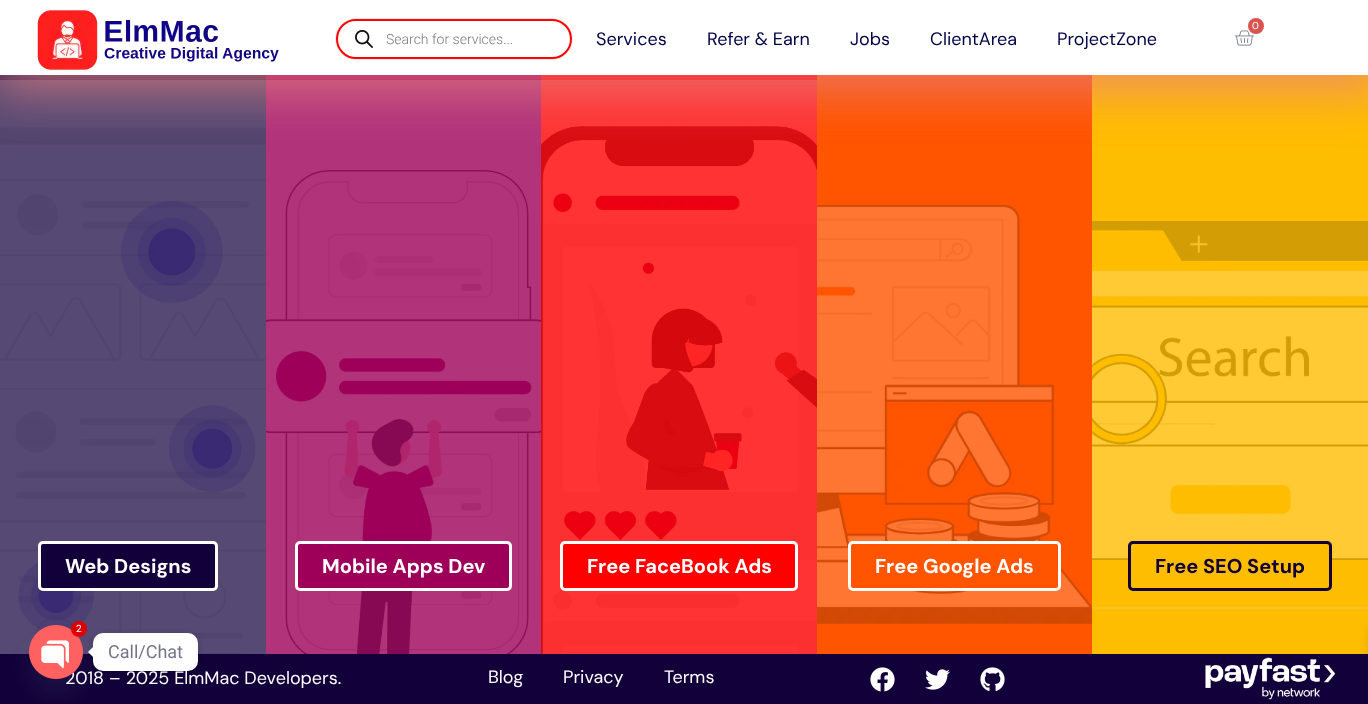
<?xml version="1.0" encoding="UTF-8"?>
<svg xmlns="http://www.w3.org/2000/svg" width="1368" height="704">
    <defs>
        <filter id="blur1" x="-50%" y="-200%" width="200%" height="500%"><feGaussianBlur stdDeviation="25"/></filter>
        <filter id="blur2" x="-50%" y="-200%" width="200%" height="500%"><feGaussianBlur stdDeviation="4"/></filter>
        <filter id="blur3" x="-50%" y="-200%" width="200%" height="500%"><feGaussianBlur stdDeviation="12"/></filter>
        <filter id="blur4" x="-50%" y="-200%" width="200%" height="500%"><feGaussianBlur stdDeviation="5"/></filter>
    </defs>
    <rect width="100%" height="100%" fill="#2C1C50"/>
    <image x="0" y="80" width="266" height="574" href="img_04.png"/>
    <rect x="266" y="75" width="275" height="579" fill="#9E0059"/>
    <image x="266" y="80" width="275" height="574" href="img_05.png"/>
    <rect x="541" y="75" width="276" height="579" fill="#FF0000"/>
    <image x="541" y="80" width="276" height="574" href="img_06.png"/>
    <rect x="817" y="75" width="275" height="579" fill="#FF5400"/>
    <rect x="1092" y="75" width="276" height="579" fill="#FFBD00"/>
    <rect x="-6" y="-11" width="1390" height="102" fill="#E67F7F" fill-opacity="0.73" filter="url(#blur1)"/>
    <rect x="0" y="0" width="1368" height="75" fill="#FFFFFF"/>
    <image x="37" y="10" width="242" height="60" href="img_01.png"/>
    <image x="1234" y="30" width="20" height="16" href="img_02.png"/>
    <circle cx="1256" cy="26" r="8" fill="#D9534F"/>
    <text x="1252" y="29" font-family="DM Sans" font-size="10" fill="#FFFFFF">0</text>
    <rect x="335.5" y="18.5" width="237" height="41" rx="20.5" fill="none" stroke="#EEEEEE"/>
    <rect x="337" y="20" width="234" height="38" rx="19" fill="#FFFFFF" stroke="#FF0202" stroke-width="2"/>
    <image x="355" y="30" width="18" height="18" href="img_03.png"/>
    <text x="386" y="44" font-family="Roboto" font-size="14" font-weight="300" fill="#777777">Search for services...</text>
    <text x="596" y="45" font-family="DM Sans" font-size="18" fill="#000248">Services</text>
    <text x="707" y="45" font-family="DM Sans" font-size="18" fill="#000248">Refer &amp; Earn</text>
    <text x="850" y="45" font-family="DM Sans" font-size="18" fill="#000248">Jobs</text>
    <text x="930" y="45" font-family="DM Sans" font-size="18" fill="#000248">ClientArea</text>
    <text x="1057" y="45" font-family="DM Sans" font-size="18" fill="#000248">ProjectZone</text>
    <rect x="39.5" y="542.5" width="177" height="47" rx="3.5" fill="#12003A" stroke="#FFFFFF" stroke-width="3"/>
    <text x="65" y="573" font-family="DM Sans" font-size="20" font-weight="700" fill="#FFFFFF">Web Designs</text>
    <rect x="296.5" y="542.5" width="214" height="47" rx="3.5" fill="#9E0059" stroke="#FFFFFF" stroke-width="3"/>
    <text x="322" y="573" font-family="DM Sans" font-size="20" font-weight="700" fill="#FFFFFF">Mobile Apps Dev</text>
    <rect x="561.5" y="542.5" width="235" height="47" rx="3.5" fill="#FF0000" stroke="#FFFFFF" stroke-width="3"/>
    <text x="587" y="573" font-family="DM Sans" font-size="20" font-weight="700" fill="#FFFFFF">Free FaceBook Ads</text>
    <image x="817" y="205" width="275" height="419" href="img_07.png"/>
    <rect x="849.5" y="542.5" width="210" height="47" rx="3.5" fill="#FF5400" stroke="#FFFFFF" stroke-width="3"/>
    <text x="875" y="573" font-family="DM Sans" font-size="20" font-weight="700" fill="#FFFFFF">Free Google Ads</text>
    <image x="1092" y="221" width="276" height="389" href="img_08.png"/>
    <rect x="1129.5" y="542.5" width="201" height="47" rx="3.5" fill="#FFBD00" stroke="#12003A" stroke-width="3"/>
    <text x="1155" y="573" font-family="DM Sans" font-size="20" font-weight="700" fill="#12003A">Free SEO Setup</text>
    <rect x="0" y="654" width="1368" height="50" fill="#12003A"/>
    <rect x="93" y="635" width="105" height="38" rx="10" fill="#000000" fill-opacity="0.15" filter="url(#blur2)"/>
    <rect x="93" y="633" width="105" height="38" rx="10" fill="#FFFFFF"/>
    <path d="M 93 647 V 657 L 88 652 Z" fill="#FFFFFF"/>
    <rect x="29" y="641" width="54" height="54" rx="27" fill="#49687E" fill-opacity="0.16" filter="url(#blur3)"/>
    <text x="65" y="684" font-family="DM Sans" font-size="18" fill="#FFFFFF">2018 – 2025 ElmMac Developers.</text>
    <image x="29" y="625" width="54" height="54" href="img_09.png"/>
    <circle cx="79" cy="629" r="8" fill="#DD0000"/>
    <text x="76" y="632" font-family="Roboto" font-size="10" fill="#FFFFFF">2</text>
    <text x="108" y="658" font-family="Roboto" font-size="18" fill="#757589">Call/Chat</text>
    <rect x="1368" y="629" width="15" height="70" fill="#000000" fill-opacity="0.1" filter="url(#blur4)"/>
    <text x="488" y="683" font-family="DM Sans" font-size="18" fill="#FFFFFF">Blog</text>
    <text x="563" y="683" font-family="DM Sans" font-size="18" fill="#FFFFFF">Privacy</text>
    <text x="664" y="683" font-family="DM Sans" font-size="18" fill="#FFFFFF">Terms</text>
    <image x="870" y="667" width="25" height="25" href="img_10.png"/>
    <image x="925" y="669" width="25" height="21" href="img_11.png"/>
    <image x="980" y="667" width="25" height="24" href="img_12.png"/>
    <image x="1205" y="657" width="130" height="43" href="img_13.png"/>
</svg>
